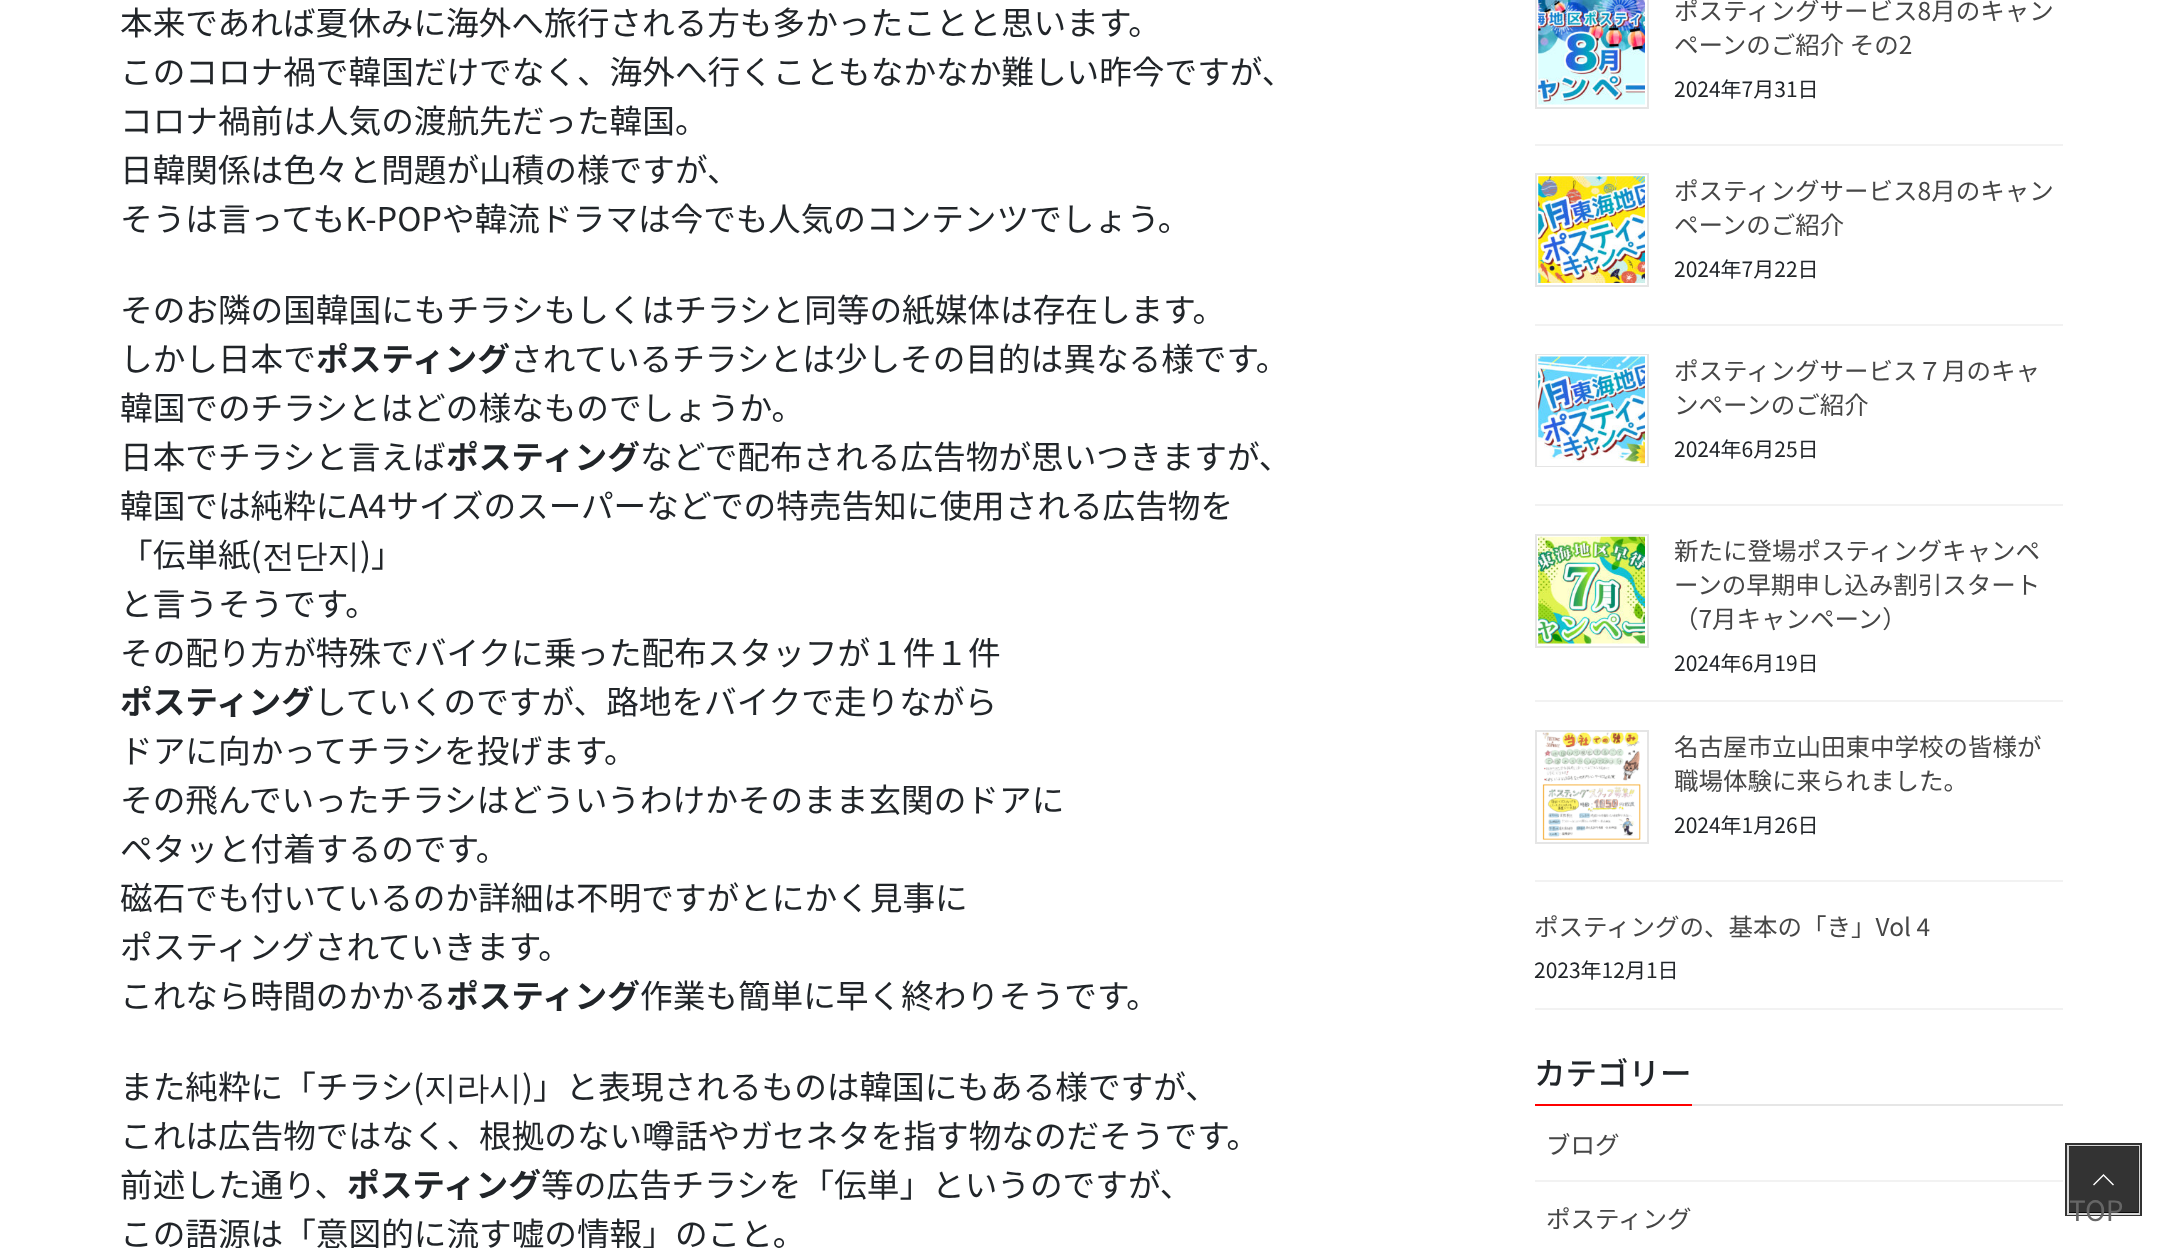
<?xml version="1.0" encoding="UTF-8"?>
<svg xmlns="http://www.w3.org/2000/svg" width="2182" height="1248">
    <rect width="100%" height="100%" fill="#FFFFFF"/>
    <text font-family="Noto Sans JP" font-size="32.65" fill="#212529">
        <tspan x="120" y="35">本来であれば夏休みに海外へ旅行される方も多かったことと思います。</tspan>
        <tspan x="120" y="84">このコロナ禍で韓国だけでなく、海外へ行くこともなかなか難しい昨今ですが、</tspan>
        <tspan x="120" y="133">コロナ禍前は人気の渡航先だった韓国。</tspan>
        <tspan x="120" y="182">日韓関係は色々と問題が山積の様ですが、</tspan>
        <tspan x="120" y="231">そうは言ってもK-POPや韓流ドラマは今でも</tspan>
    </text>
    <text x="768" y="231" font-family="Noto Sans JP" font-size="32.65" fill="#212529">人気のコンテンツでしょう。</text>
    <text font-family="Noto Sans JP" font-size="32.65" fill="#212529">
        <tspan x="120" y="322">そのお隣の国韓国にもチラシもしくはチラシと同等の紙媒体は存在します。</tspan>
        <tspan x="120" y="371">しかし日本で</tspan>
    </text>
    <text x="316" y="371" font-family="Noto Sans JP" font-size="32.65" font-weight="700" fill="#212529">ポスティング</text>
    <text x="510" y="371" font-family="Noto Sans JP" font-size="32.65" fill="#212529">されているチラシとは少しその目的は異なる様です。</text>
    <text font-family="Noto Sans JP" font-size="32.65" fill="#212529">
        <tspan x="120" y="420">韓国でのチラシとはどの様なものでしょうか。</tspan>
        <tspan x="120" y="469">日本でチラシと言えば</tspan>
    </text>
    <text x="446" y="469" font-family="Noto Sans JP" font-size="32.65" font-weight="700" fill="#212529">ポスティング</text>
    <text x="640" y="469" font-family="Noto Sans JP" font-size="32.65" fill="#212529">などで配布される広告物が思いつきますが、</text>
    <text font-family="Noto Sans JP" font-size="32.65" fill="#212529">
        <tspan x="120" y="518">韓国では純粋にA4サイズのスーパーなどでの特売告知に使用される広告物を</tspan>
        <tspan x="120" y="567">「伝単紙(</tspan>
    </text>
    <text x="262" y="567" font-family="WenQuanYi Zen Hei" font-size="32.65" font-weight="500" fill="#212529">전단지</text>
    <text x="360" y="567" font-family="Noto Sans JP" font-size="32.65" fill="#212529">)」</text>
    <text font-family="Noto Sans JP" font-size="32.65" fill="#212529">
        <tspan x="120" y="616">と言うそうです。</tspan>
        <tspan x="120" y="665">その配り方が特殊でバイクに乗った配布スタッフが１件１件</tspan>
    </text>
    <text x="120" y="714" font-family="Noto Sans JP" font-size="32.65" font-weight="700" fill="#212529">ポスティング</text>
    <text x="314" y="714" font-family="Noto Sans JP" font-size="32.65" fill="#212529">していくのですが、路地をバイクで走りながら</text>
    <text font-family="Noto Sans JP" font-size="32.65" fill="#212529">
        <tspan x="120" y="763">ドアに向かってチラシを投げます。</tspan>
        <tspan x="120" y="812">その飛んでいったチラシはどういうわけかそのまま玄関のドアに</tspan>
        <tspan x="120" y="861">ペタッと付着するのです。</tspan>
        <tspan x="120" y="910">磁石でも付いているのか詳細は不明ですがとにかく見事に</tspan>
        <tspan x="120" y="959">ポスティングされていきます。</tspan>
        <tspan x="120" y="1008">これなら時間のかかる</tspan>
    </text>
    <text x="446" y="1008" font-family="Noto Sans JP" font-size="32.65" font-weight="700" fill="#212529">ポスティング</text>
    <text x="640" y="1008" font-family="Noto Sans JP" font-size="32.65" fill="#212529">作業も簡単に早く終わりそうです。</text>
    <text x="120" y="1099" font-family="Noto Sans JP" font-size="32.65" fill="#212529">また純粋に「チラシ(</text>
    <text x="424" y="1099" font-family="WenQuanYi Zen Hei" font-size="32.65" font-weight="500" fill="#212529">지라시</text>
    <text x="522" y="1099" font-family="Noto Sans JP" font-size="32.65" fill="#212529">)」と表現されるものは韓国にもある様ですが、</text>
    <text font-family="Noto Sans JP" font-size="32.65" fill="#212529">
        <tspan x="120" y="1148">これは広告物ではなく、根拠のない噂話やガセネタを指す物なのだそうです。</tspan>
        <tspan x="120" y="1197">前述した通り、</tspan>
    </text>
    <text x="347" y="1197" font-family="Noto Sans JP" font-size="32.65" font-weight="700" fill="#212529">ポスティング</text>
    <text x="541" y="1197" font-family="Noto Sans JP" font-size="32.65" fill="#212529">等の広告チラシを「伝単」というのですが、</text>
    <text x="120" y="1246" font-family="Noto Sans JP" font-size="32.65" fill="#212529">この語源は「意図的に流す嘘の情報」のこと。</text>
    <rect x="1535" y="144" width="528" height="2" fill="#F2F2F2"/>
    <rect x="1536" y="-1" width="112" height="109" fill="none" stroke="#E5E5E5" stroke-width="2"/>
    <image x="1538" y="0" width="107" height="105" href="img_01.png"/>
    <text font-family="Noto Sans JP" font-size="24.5" fill="#464646">
        <tspan x="1674" y="20">ポスティングサービス8月のキャン</tspan>
        <tspan x="1674" y="54">ペーンのご紹介 その2</tspan>
    </text>
    <text x="1674" y="97" font-family="Noto Sans JP" font-size="21" fill="#212529">2024年7月31日</text>
    <rect x="1535" y="324" width="528" height="2" fill="#F2F2F2"/>
    <rect x="1536" y="174" width="112" height="112" fill="none" stroke="#E5E5E5" stroke-width="2"/>
    <image x="1538" y="176" width="107" height="107" href="img_02.png"/>
    <text font-family="Noto Sans JP" font-size="24.5" fill="#464646">
        <tspan x="1674" y="200">ポスティングサービス8月のキャン</tspan>
        <tspan x="1674" y="234">ペーンのご紹介</tspan>
    </text>
    <text x="1674" y="277" font-family="Noto Sans JP" font-size="21" fill="#212529">2024年7月22日</text>
    <rect x="1535" y="504" width="528" height="2" fill="#F2F2F2"/>
    <rect x="1536" y="355" width="112" height="111" fill="none" stroke="#E5E5E5" stroke-width="2"/>
    <rect x="1538" y="356" width="108" height="109" fill="none" stroke="#FFFFFF" stroke-width="2"/>
    <image x="1538" y="356" width="107" height="108" href="img_03.png"/>
    <text font-family="Noto Sans JP" font-size="24.5" fill="#464646">
        <tspan x="1674" y="380">ポスティングサービス７月のキャ</tspan>
        <tspan x="1674" y="414">ンペーンのご紹介</tspan>
    </text>
    <text x="1674" y="457" font-family="Noto Sans JP" font-size="21" fill="#212529">2024年6月25日</text>
    <rect x="1535" y="700" width="528" height="2" fill="#F2F2F2"/>
    <rect x="1536" y="535" width="112" height="112" fill="none" stroke="#E5E5E5" stroke-width="2"/>
    <image x="1538" y="536" width="107" height="108" href="img_04.png"/>
    <text font-family="Noto Sans JP" font-size="24.5" fill="#464646">
        <tspan x="1674" y="560">新たに登場ポスティングキャンペ</tspan>
        <tspan x="1674" y="594">ーンの早期申し込み割引スタート</tspan>
        <tspan x="1674" y="628">（7月キャンペーン）</tspan>
    </text>
    <text x="1674" y="671" font-family="Noto Sans JP" font-size="21" fill="#212529">2024年6月19日</text>
    <rect x="1535" y="880" width="528" height="2" fill="#F2F2F2"/>
    <rect x="1536" y="731" width="112" height="112" fill="none" stroke="#E5E5E5" stroke-width="2"/>
    <image x="1542" y="732" width="99" height="108" href="img_05.png"/>
    <text font-family="Noto Sans JP" font-size="24.5" fill="#464646">
        <tspan x="1674" y="756">名古屋市立山田東中学校の皆様が</tspan>
        <tspan x="1674" y="790">職場体験に来られました。</tspan>
    </text>
    <text x="1674" y="833" font-family="Noto Sans JP" font-size="21" fill="#212529">2024年1月26日</text>
    <rect x="1535" y="1008" width="528" height="2" fill="#F2F2F2"/>
    <text x="1534" y="936" font-family="Noto Sans JP" font-size="24.5" fill="#464646">ポスティングの、基本の「き」Vol 4</text>
    <text x="1534" y="978" font-family="Noto Sans JP" font-size="21" fill="#212529">2023年12月1日</text>
    <rect x="1692" y="1104" width="371" height="2" fill="#E6E6E6"/>
    <text x="1534" y="1085" font-family="Noto Sans JP" font-size="31.5" font-weight="500" fill="#212529">カテゴリー</text>
    <rect x="1535" y="1104" width="157" height="2" fill="#FF0000"/>
    <rect x="1535" y="1180" width="528" height="2" fill="#F2F2F2"/>
    <text x="1546" y="1154" font-family="Noto Sans JP" font-size="24.5" fill="#464646">ブログ</text>
    <text x="1546" y="1228" font-family="Noto Sans JP" font-size="24.5" fill="#464646">ポスティング</text>
    <rect x="2067" y="1145" width="73" height="69" fill="none" stroke="#333333" stroke-width="4"/>
    <rect x="2068" y="1146" width="71" height="68" fill="none" stroke="#D6D6D6" stroke-width="2"/>
    <rect x="2069" y="1146" width="70" height="67" fill="#000000" fill-opacity="0.8"/>
    <path d="M 2114 1184.5 L 2113 1185.5 L 2103.5 1176 L 2094 1185.5 L 2093 1184.5 L 2103.5 1174 Z" fill="#FFFFFF"/>
    <text x="2069" y="1221" font-family="Noto Sans JP" font-size="28" fill="#666666">TOP</text>
</svg>
